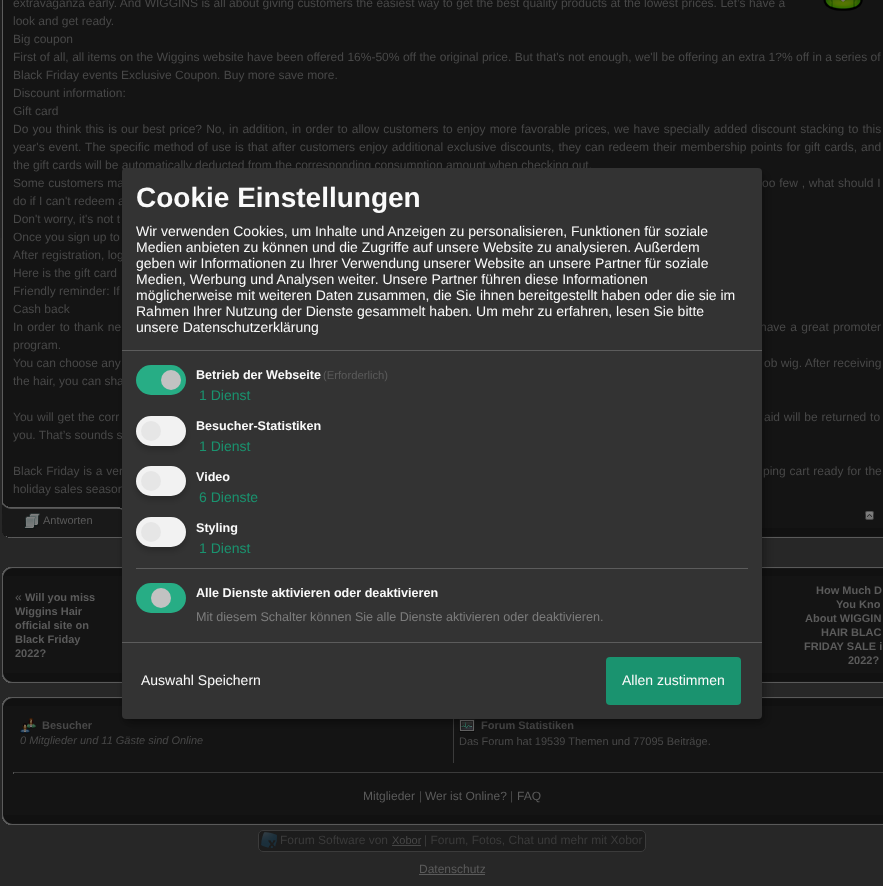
<?xml version="1.0" encoding="UTF-8"?>
<svg xmlns="http://www.w3.org/2000/svg" width="883" height="886">
    <defs>
        <filter id="blur1" x="-50%" y="-200%" width="200%" height="500%"><feGaussianBlur stdDeviation="5"/></filter>
        <filter id="blur2" x="-50%" y="-200%" width="200%" height="500%"><feGaussianBlur stdDeviation="3"/></filter>
    </defs>
    <rect width="100%" height="100%" fill="#272727"/>
    <image x="0" y="0" width="2" height="238" href="img_01.png"/>
    <rect x="3" y="0" width="880" height="528" fill="#141414"/>
    <rect x="2" y="0" width="1" height="503" fill="#5C5C5C"/>
    <text font-family="Liberation Sans" font-size="12" fill="#484848">
        <tspan x="13" y="7" word-spacing="0.15">extravaganza early. And WIGGINS is all about giving customers the easiest way to get the best quality products at the lowest prices. Let’s have a</tspan>
        <tspan x="13" y="25">look and get ready.</tspan>
        <tspan x="13" y="43">Big coupon</tspan>
        <tspan x="13" y="61" word-spacing="0.15">First of all, all items on the Wiggins website have been offered 16%-50% off the original price. But that's not enough, we'll be offering an extra 1?%</tspan>
    </text>
    <text x="796" y="61" font-family="Liberation Sans" font-size="12" fill="#484848">off in a series of</text>
    <text font-family="Liberation Sans" font-size="12" fill="#484848">
        <tspan x="13" y="79">Black Friday events Exclusive Coupon. Buy more save more.</tspan>
        <tspan x="13" y="97">Discount information:</tspan>
        <tspan x="13" y="115">Gift card</tspan>
        <tspan x="13" y="133" word-spacing="0.8">Do you think this is our best price? No, in addition, in order to allow customers to enjoy more favorable prices, we have specially added discount stacking to this</tspan>
        <tspan x="13" y="151" word-spacing="0.65">year's event. The specific method of use is that after customers enjoy additional exclusive discounts, they can redeem their membership points for gift cards, and</tspan>
        <tspan x="13" y="169">the gift cards will be automatically deducted from the corresponding consumption amount when checking out.</tspan>
        <tspan x="13" y="187" word-spacing="0.5">Some customers ma</tspan>
    </text>
    <text x="762" y="187" word-spacing="0.5" font-family="Liberation Sans" font-size="12" fill="#484848">oo few , what should I</text>
    <text font-family="Liberation Sans" font-size="12" fill="#484848">
        <tspan x="13" y="205">do if I can't redeem a</tspan>
        <tspan x="13" y="223">Don't worry, it's not t</tspan>
        <tspan x="13" y="241">Once you sign up to</tspan>
        <tspan x="13" y="259">After registration, log</tspan>
        <tspan x="13" y="277">Here is the gift card</tspan>
        <tspan x="13" y="295">Friendly reminder: If</tspan>
        <tspan x="13" y="313">Cash back</tspan>
        <tspan x="13" y="331" word-spacing="1">In order to thank ne</tspan>
    </text>
    <text x="760" y="331" word-spacing="1" font-family="Liberation Sans" font-size="12" fill="#484848">have a great promoter</text>
    <text font-family="Liberation Sans" font-size="12" fill="#484848">
        <tspan x="13" y="349">program.</tspan>
        <tspan x="13" y="367">You can choose any</tspan>
    </text>
    <text x="764" y="367" font-family="Liberation Sans" font-size="12" fill="#484848">ob wig. After receiving</text>
    <text x="13" y="385" font-family="Liberation Sans" font-size="12" fill="#484848">the hair, you can sha</text>
    <text x="13" y="421" word-spacing="0.5" font-family="Liberation Sans" font-size="12" fill="#484848">You will get the corr</text>
    <text x="764" y="421" word-spacing="0.5" font-family="Liberation Sans" font-size="12" fill="#484848">aid will be returned to</text>
    <text x="13" y="439" font-family="Liberation Sans" font-size="12" fill="#484848">you. That’s sounds s</text>
    <text x="13" y="475" word-spacing="0.5" font-family="Liberation Sans" font-size="12" fill="#484848">Black Friday is a ver</text>
    <text x="763" y="475" word-spacing="0.5" font-family="Liberation Sans" font-size="12" fill="#484848">ping cart ready for the</text>
    <text x="13" y="493" font-family="Liberation Sans" font-size="12" fill="#484848">holiday sales season</text>
    <image x="823" y="0" width="40" height="11" href="img_02.png"/>
    <image x="6" y="528" width="877" height="10" href="img_06.png"/>
    <image x="2" y="503" width="120" height="34" href="img_03.png"/>
    <image x="24" y="513" width="16" height="16" href="img_04.png"/>
    <text x="43" y="524" font-family="Liberation Sans" font-size="11" fill="#5B5B5B">Antworten</text>
    <image x="865" y="511" width="9" height="9" href="img_05.png"/>
    <image x="2" y="567" width="881" height="9" href="img_07.png"/>
    <rect x="3" y="576" width="880" height="97" fill="#141414"/>
    <rect x="2" y="576" width="1" height="98" fill="#5C5C5C"/>
    <text x="15" y="601" font-family="Liberation Sans" font-size="12" fill="#5B5B5B">«</text>
    <text x="25" y="601" font-family="Liberation Sans" font-size="11" font-weight="700" fill="#5B5B5B">Will you miss</text>
    <text font-family="Liberation Sans" font-size="11" font-weight="700" fill="#5B5B5B">
        <tspan x="15" y="615">Wiggins Hair</tspan>
        <tspan x="15" y="629">official site on</tspan>
        <tspan x="15" y="643">Black Friday</tspan>
        <tspan x="15" y="657">2022?</tspan>
    </text>
    <text x="816" y="594" font-family="Liberation Sans" font-size="11" font-weight="700" fill="#5B5B5B">How Much D</text>
    <text x="836" y="608" font-family="Liberation Sans" font-size="11" font-weight="700" fill="#5B5B5B">You Kno</text>
    <text x="805" y="622" font-family="Liberation Sans" font-size="11" font-weight="700" fill="#5B5B5B">About WIGGIN</text>
    <text x="821" y="636" font-family="Liberation Sans" font-size="11" font-weight="700" fill="#5B5B5B">HAIR BLAC</text>
    <text x="804" y="650" font-family="Liberation Sans" font-size="11" font-weight="700" fill="#5B5B5B">FRIDAY SALE i</text>
    <text x="848" y="664" font-family="Liberation Sans" font-size="11" font-weight="700" fill="#5B5B5B">2022?</text>
    <image x="2" y="673" width="881" height="10" href="img_08.png"/>
    <image x="2" y="697" width="881" height="9" href="img_07.png"/>
    <rect x="3" y="706" width="880" height="109" fill="#141414"/>
    <rect x="2" y="706" width="1" height="110" fill="#5C5C5C"/>
    <image x="20" y="718" width="16" height="16" href="img_09.png"/>
    <text x="42" y="729" font-family="Liberation Sans" font-size="11" font-weight="700" fill="#484848">Besucher</text>
    <text x="20" y="744" font-family="Liberation Sans" font-size="11" font-style="italic" fill="#484848">0 Mitglieder und 11 Gäste sind Online</text>
    <rect x="453" y="713" width="1" height="50" fill="#3B3B3B"/>
    <image x="459" y="719" width="16" height="13" href="img_10.png"/>
    <text x="481" y="729" font-family="Liberation Sans" font-size="11" font-weight="700" fill="#484848">Forum Statistiken</text>
    <text x="459" y="745" font-family="Liberation Sans" font-size="11" fill="#484848">Das Forum hat 19539 Themen und 77095 Beiträge.</text>
    <rect x="13" y="772" width="870" height="1" fill="#3B3B3B"/>
    <rect x="13" y="772" width="1" height="2" fill="#505050"/>
    <text x="363" y="800" font-family="Liberation Sans" font-size="12" fill="#5B5B5B">Mitglieder</text>
    <text x="419" y="800" font-family="Liberation Sans" font-size="12" fill="#484848">|</text>
    <text x="425" y="800" font-family="Liberation Sans" font-size="12" fill="#5B5B5B">Wer ist Online?</text>
    <text x="510" y="800" font-family="Liberation Sans" font-size="12" fill="#484848">|</text>
    <text x="517" y="800" font-family="Liberation Sans" font-size="12" fill="#5B5B5B">FAQ</text>
    <image x="2" y="815" width="881" height="10" href="img_08.png"/>
    <rect x="258.5" y="830.5" width="387" height="21" rx="4.5" fill="#1C1C1C" stroke="#3B3B3B"/>
    <image x="261" y="832" width="16" height="16" href="img_11.png"/>
    <text x="280" y="844" font-family="Liberation Sans" font-size="12" fill="#3B3B3B">Forum Software von</text>
    <text x="392" y="844" font-family="Liberation Sans" font-size="11" fill="#484848">Xobor</text>
    <rect x="392" y="845" width="29" height="1" fill="#464646"/>
    <text x="424" y="844" font-family="Liberation Sans" font-size="12" fill="#3B3B3B">| Forum, Fotos, Chat und mehr mit Xobor</text>
    <text x="419" y="873" font-family="Liberation Sans" font-size="12" fill="#5B5B5B">Datenschutz</text>
    <rect x="419" y="874" width="66" height="1" fill="#5B5B5B"/>
    <rect x="127" y="173" width="640" height="551" rx="4" fill="#000000" fill-opacity="0.19" filter="url(#blur1)"/>
    <rect x="122" y="172" width="640" height="551" rx="4" fill="#000000" fill-opacity="0.2" filter="url(#blur2)"/>
    <rect x="122" y="168" width="640" height="551" rx="4" fill="#333333"/>
    <rect x="122" y="350" width="640" height="1" fill="#5C5C5C"/>
    <text x="136" y="207" font-family="Liberation Sans" font-size="28" font-weight="700" fill="#FAFAFA">Cookie Einstellungen</text>
    <text font-family="Liberation Sans" font-size="14" fill="#FAFAFA">
        <tspan x="136" y="236">Wir verwenden Cookies, um Inhalte und Anzeigen zu personalisieren, Funktionen für soziale</tspan>
        <tspan x="136" y="252">Medien anbieten zu können und die Zugriffe auf unsere Website zu analysieren. Außerdem</tspan>
        <tspan x="136" y="268">geben wir Informationen zu Ihrer Verwendung unserer Website an unsere Partner für soziale</tspan>
        <tspan x="136" y="284">Medien, Werbung und Analysen weiter. Unsere Partner führen diese Informationen</tspan>
        <tspan x="136" y="300">möglicherweise mit weiteren Daten zusammen, die Sie ihnen bereitgestellt haben oder die sie im</tspan>
        <tspan x="136" y="316">Rahmen Ihrer Nutzung der Dienste gesammelt haben. Um mehr zu erfahren, lesen Sie bitte</tspan>
        <tspan x="136" y="332">unsere Datenschutzerklärung</tspan>
    </text>
    <rect x="136" y="365" width="50" height="30" rx="15" fill="#27AD85"/>
    <circle cx="171" cy="380" r="10" fill="#C2C2C2"/>
    <text x="196" y="379" font-family="Liberation Sans" font-size="12.6" font-weight="700" fill="#FAFAFA">Betrieb der Webseite</text>
    <text x="323" y="379" font-family="Liberation Sans" font-size="11.25" fill="#5B5B5B">(Erforderlich)</text>
    <text x="199" y="400" font-family="Liberation Sans" font-size="14" fill="#1A936F">1 Dienst</text>
    <rect x="136" y="420" width="50" height="30" rx="15" fill="#000000" fill-opacity="0.2" filter="url(#blur2)"/>
    <rect x="136" y="416" width="50" height="30" rx="15" fill="#F2F2F2"/>
    <circle cx="151" cy="431" r="10" fill="#E6E6E6"/>
    <text x="196" y="430" font-family="Liberation Sans" font-size="12.6" font-weight="700" fill="#FAFAFA">Besucher-Statistiken</text>
    <text x="199" y="451" font-family="Liberation Sans" font-size="14" fill="#1A936F">1 Dienst</text>
    <rect x="136" y="470" width="50" height="30" rx="15" fill="#000000" fill-opacity="0.2" filter="url(#blur2)"/>
    <rect x="136" y="466" width="50" height="30" rx="15" fill="#F2F2F2"/>
    <circle cx="151" cy="481" r="10" fill="#E6E6E6"/>
    <text x="196" y="481" font-family="Liberation Sans" font-size="12.6" font-weight="700" fill="#FAFAFA">Video</text>
    <text x="199" y="502" font-family="Liberation Sans" font-size="14" fill="#1A936F">6 Dienste</text>
    <rect x="136" y="521" width="50" height="30" rx="15" fill="#000000" fill-opacity="0.2" filter="url(#blur2)"/>
    <rect x="136" y="517" width="50" height="30" rx="15" fill="#F2F2F2"/>
    <circle cx="151" cy="532" r="10" fill="#E6E6E6"/>
    <text x="196" y="532" font-family="Liberation Sans" font-size="12.6" font-weight="700" fill="#FAFAFA">Styling</text>
    <text x="199" y="553" font-family="Liberation Sans" font-size="14" fill="#1A936F">1 Dienst</text>
    <rect x="136" y="568" width="612" height="1" fill="#5C5C5C"/>
    <rect x="136" y="583" width="50" height="30" rx="15" fill="#27AD85"/>
    <circle cx="161" cy="598" r="10" fill="#C2C2C2"/>
    <text x="196" y="597" font-family="Liberation Sans" font-size="12.6" font-weight="700" fill="#FAFAFA">Alle Dienste aktivieren oder deaktivieren</text>
    <text x="196" y="621" font-family="Liberation Sans" font-size="12.6" fill="#7C7C7C">Mit diesem Schalter können Sie alle Dienste aktivieren oder deaktivieren.</text>
    <rect x="122" y="642" width="640" height="1" fill="#5C5C5C"/>
    <text x="141" y="685" font-family="Liberation Sans" font-size="14" fill="#FAFAFA">Auswahl Speichern</text>
    <rect x="606" y="657" width="135" height="48" rx="4" fill="#1A936F"/>
    <text x="622" y="685" font-family="Liberation Sans" font-size="14" fill="#FAFAFA">Allen zustimmen</text>
</svg>
